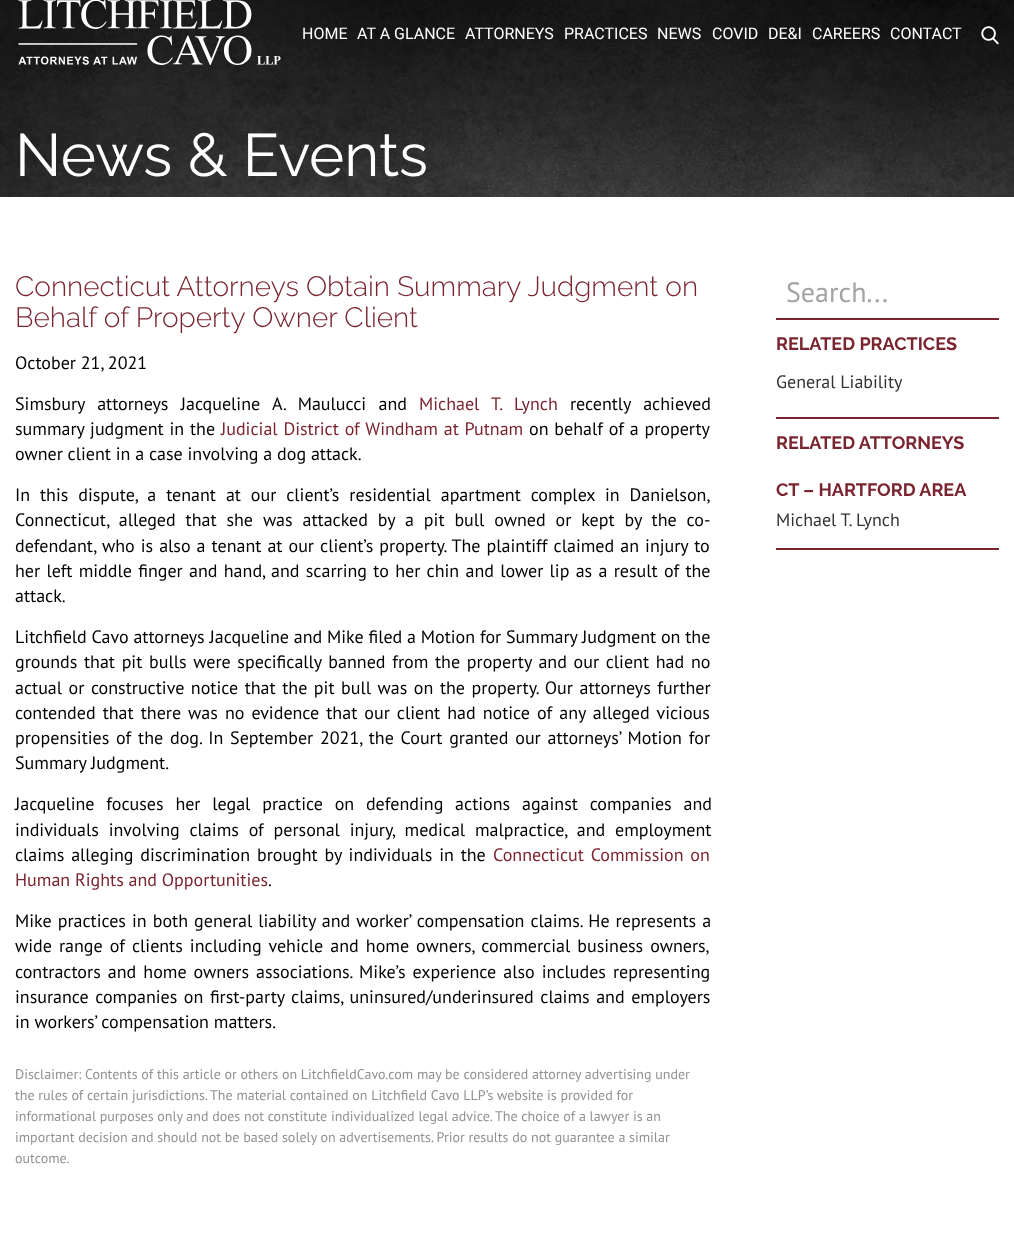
<?xml version="1.0" encoding="UTF-8"?>
<svg xmlns="http://www.w3.org/2000/svg" width="1014" height="1257">
    <rect width="100%" height="100%" fill="#FFFFFF"/>
    <image x="0" y="0" width="1014" height="197" href="img_01.png"/>
    <image x="18" y="0" width="263" height="65" href="img_02.png"/>
    <text x="302" y="39" font-family="Roboto" font-size="16" fill="#FFFFFF">HOME</text>
    <text x="357" y="39" font-family="Roboto" font-size="16" fill="#FFFFFF">AT A GLANCE</text>
    <text x="465" y="39" font-family="Roboto" font-size="16" fill="#FFFFFF">ATTORNEYS</text>
    <text x="564" y="39" font-family="Roboto" font-size="16" fill="#FFFFFF">PRACTICES</text>
    <text x="657" y="39" font-family="Roboto" font-size="16" fill="#FFFFFF">NEWS</text>
    <text x="712" y="39" font-family="Roboto" font-size="16" fill="#FFFFFF">COVID</text>
    <text x="768" y="39" font-family="Roboto" font-size="16" fill="#FFFFFF">DE&amp;I</text>
    <text x="812" y="39" font-family="Roboto" font-size="16" fill="#FFFFFF">CAREERS</text>
    <text x="890" y="39" font-family="Roboto" font-size="16" fill="#FFFFFF">CONTACT</text>
    <image x="981" y="26" width="18" height="19" href="img_03.png"/>
    <text x="15" y="176" font-family="Raleway" font-size="60" fill="#FFFFFF">News &amp; Events</text>
    <text font-family="Raleway" font-size="28" font-weight="300" fill="#79242F">
        <tspan x="15" y="296">Connecticut Attorneys Obtain Summary Judgment on</tspan>
        <tspan x="15" y="327">Behalf of Property Owner Client</tspan>
    </text>
    <text x="15" y="369" font-family="PT Sans" font-size="18" fill="#000000">October 21, 2021</text>
    <text x="15" y="410" word-spacing="7.5" font-family="PT Sans" font-size="18" fill="#000000">Simsbury attorneys Jacqueline A. Maulucci and</text>
    <text x="419" y="410" word-spacing="7.5" font-family="PT Sans" font-size="18" fill="#79242F">Michael T. Lynch</text>
    <text x="570" y="410" word-spacing="7.5" font-family="PT Sans" font-size="18" fill="#000000">recently achieved</text>
    <text x="15" y="435" word-spacing="1" font-family="PT Sans" font-size="18" fill="#000000">summary judgment in the</text>
    <text x="221" y="435" word-spacing="1" font-family="PT Sans" font-size="18" fill="#79242F">Judicial District of Windham at Putnam</text>
    <text x="529" y="435" word-spacing="1" font-family="PT Sans" font-size="18" fill="#000000">on behalf of a property</text>
    <text x="15" y="460" font-family="PT Sans" font-size="18" fill="#000000">owner client in a case involving a dog attack.</text>
    <text font-family="PT Sans" font-size="18" fill="#000000">
        <tspan x="15" y="501" word-spacing="5.1">In this dispute, a tenant at our client’s residential apartment complex in Danielson,</tspan>
        <tspan x="15" y="526" word-spacing="5.1">Connecticut, alleged that she was attacked by a pit bull owned or kept by the co-</tspan>
        <tspan x="15" y="552" word-spacing="1.25">defendant, who is also a tenant at our client’s property. The plaintiff claimed an injury to</tspan>
        <tspan x="15" y="577" word-spacing="1.5">her left middle finger and hand, and scarring to her chin and lower lip as a result of the</tspan>
        <tspan x="15" y="602">attack.</tspan>
    </text>
    <text font-family="PT Sans" font-size="18" fill="#000000">
        <tspan x="15" y="643">Litchfield Cavo attorneys Jacqueline and Mike filed a Motion for Summary Judgment on the</tspan>
        <tspan x="15" y="668" word-spacing="1.9">grounds that pit bulls were specifically banned from the property and our client had no</tspan>
        <tspan x="15" y="694" word-spacing="1.75">actual or constructive notice that the pit bull was on the property. Our attorneys further</tspan>
        <tspan x="15" y="719" word-spacing="2.25">contended that there was no evidence that our client had notice of any alleged vicious</tspan>
        <tspan x="15" y="744" word-spacing="2">propensities of the dog. In September 2021, the Court granted our attorneys’ Motion for</tspan>
        <tspan x="15" y="769">Summary Judgment.</tspan>
    </text>
    <text font-family="PT Sans" font-size="18" fill="#000000">
        <tspan x="15" y="810" word-spacing="7">Jacqueline focuses her legal practice on defending actions against companies and</tspan>
        <tspan x="15" y="836" word-spacing="5">individuals involving claims of personal injury, medical malpractice, and employment</tspan>
        <tspan x="15" y="861" word-spacing="2">claims alleging discrimination brought by individuals in the</tspan>
    </text>
    <text x="493" y="861" word-spacing="2" font-family="PT Sans" font-size="18" fill="#79242F">Connecticut Commission on</text>
    <text x="15" y="886" font-family="PT Sans" font-size="18" fill="#79242F">Human Rights and Opportunities</text>
    <text x="268" y="886" font-family="PT Sans" font-size="18" fill="#000000">.</text>
    <text font-family="PT Sans" font-size="18" fill="#000000">
        <tspan x="15" y="927" word-spacing="1.25">Mike practices in both general liability and worker’ compensation claims. He represents a</tspan>
        <tspan x="15" y="952" word-spacing="2.25">wide range of clients including vehicle and home owners, commercial business owners,</tspan>
        <tspan x="15" y="978" word-spacing="2.25">contractors and home owners associations. Mike’s experience also includes representing</tspan>
        <tspan x="15" y="1003" word-spacing="1.75">insurance companies on first-party claims, uninsured/underinsured claims and employers</tspan>
        <tspan x="15" y="1028">in workers’ compensation matters.</tspan>
    </text>
    <text font-family="PT Sans" font-size="14" fill="#919191">
        <tspan x="15" y="1079">Disclaimer: Contents of this article or others on LitchfieldCavo.com may be considered attorney advertising under</tspan>
        <tspan x="15" y="1100">the rules of certain jurisdictions. The material contained on Litchfield Cavo LLP’s website is provided for</tspan>
        <tspan x="15" y="1121">informational purposes only and does not constitute individualized legal advice. The choice of a lawyer is an</tspan>
        <tspan x="15" y="1142">important decision and should not be based solely on advertisements. Prior results do not guarantee a similar</tspan>
        <tspan x="15" y="1163">outcome.</tspan>
    </text>
    <rect x="776" y="318" width="223" height="2" fill="#79242F"/>
    <text x="786" y="302" font-family="PT Sans" font-size="28" fill="#A1A4A2">Search...</text>
    <rect x="776" y="417" width="223" height="2" fill="#79242F"/>
    <text x="776" y="350" font-family="Raleway" font-size="18" font-weight="700" fill="#79242F">RELATED PRACTICES</text>
    <text x="776" y="388" font-family="PT Sans" font-size="18" fill="#333333">General Liability</text>
    <rect x="776" y="548" width="223" height="2" fill="#79242F"/>
    <text x="776" y="449" font-family="Raleway" font-size="18" font-weight="700" fill="#79242F">RELATED ATTORNEYS</text>
    <text x="776" y="496" font-family="Raleway" font-size="18" font-weight="700" fill="#79242F">CT – HARTFORD AREA</text>
    <text x="776" y="526" font-family="PT Sans" font-size="18" fill="#333333">Michael T. Lynch</text>
</svg>
